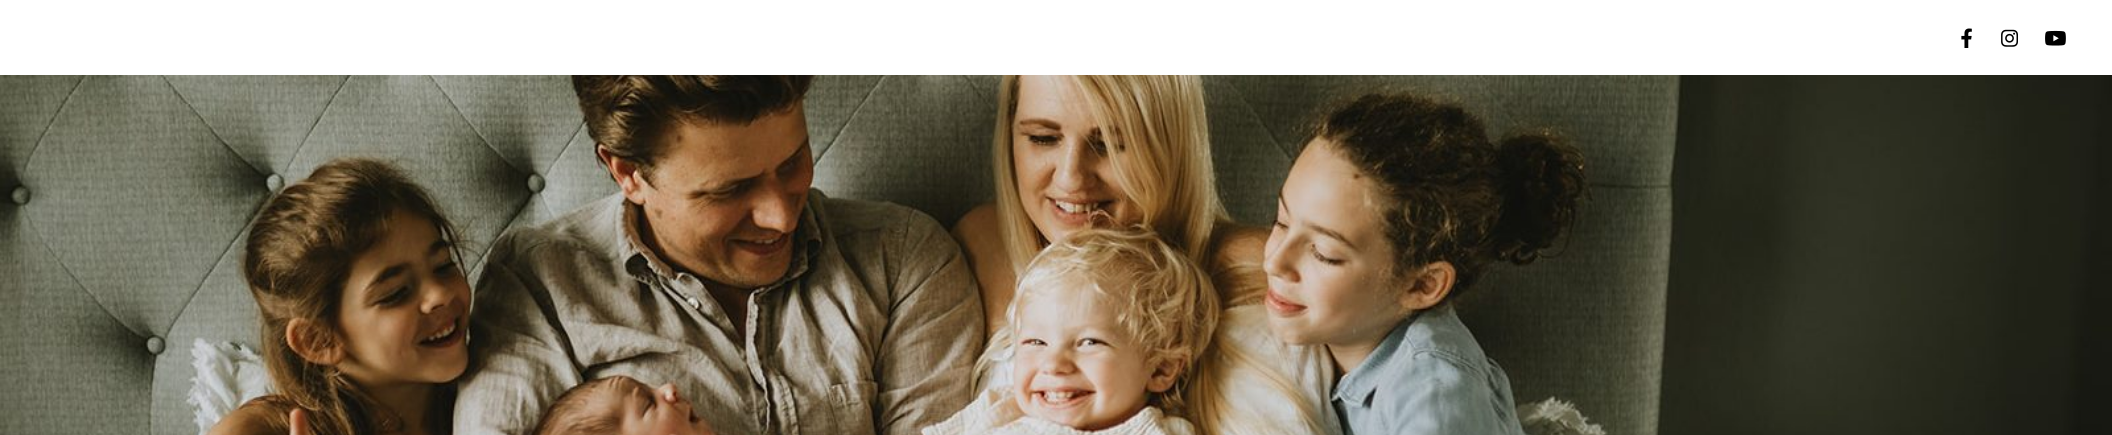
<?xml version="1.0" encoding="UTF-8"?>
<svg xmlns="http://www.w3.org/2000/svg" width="2112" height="435">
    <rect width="100%" height="100%" fill="#FFFFFF"/>
    <image x="1961" y="28" width="11" height="20" href="img_01.png"/>
    <image x="2001" y="29" width="17" height="18" href="img_02.png"/>
    <image x="2045" y="30" width="21" height="16" href="img_03.png"/>
    <image x="0" y="75" width="2112" height="360" href="img_04.png"/>
</svg>
